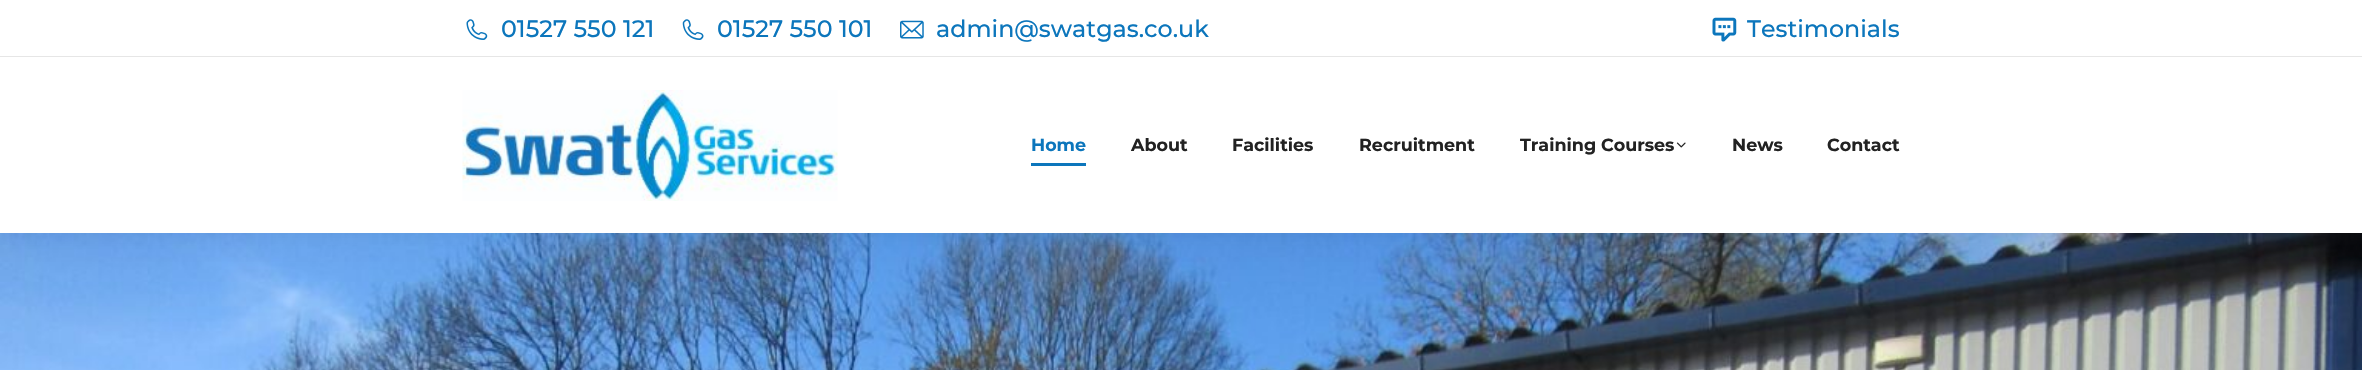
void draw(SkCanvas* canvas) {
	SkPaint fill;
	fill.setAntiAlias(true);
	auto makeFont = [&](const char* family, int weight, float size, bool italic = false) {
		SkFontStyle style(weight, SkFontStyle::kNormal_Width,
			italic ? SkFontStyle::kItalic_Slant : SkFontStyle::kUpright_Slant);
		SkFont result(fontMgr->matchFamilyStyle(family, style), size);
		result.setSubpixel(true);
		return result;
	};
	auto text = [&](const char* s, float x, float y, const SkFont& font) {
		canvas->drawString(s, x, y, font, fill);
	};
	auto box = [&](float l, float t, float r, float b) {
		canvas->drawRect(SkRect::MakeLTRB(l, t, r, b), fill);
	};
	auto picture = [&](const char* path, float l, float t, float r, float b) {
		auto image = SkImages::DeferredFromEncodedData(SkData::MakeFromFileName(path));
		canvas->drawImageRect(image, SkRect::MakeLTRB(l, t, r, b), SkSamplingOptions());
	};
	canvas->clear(0xFFFFFFFF);
	picture("image6.png", 0, 233, 2362, 370);
	fill.setColor(0x12000000);
	fill.setMaskFilter(SkMaskFilter::MakeBlur(kNormal_SkBlurStyle, 9.5f));
	canvas->drawRect(SkRect::MakeLTRB(-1, -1, 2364, 234), fill);
	fill.setMaskFilter(nullptr);
	fill.setColor(0xFFFFFFFF);
	box(0, 0, 2362, 233);
	picture("image0.png", 466, 19, 488, 40);
	picture("image1.png", 682, 19, 704, 40);
	picture("image2.png", 900, 20, 924, 39);
	picture("image3.png", 1712, 17, 1737, 42);
	fill.setColor(0xFFE6E6E6);
	box(0, 56, 2362, 57);
	picture("image4.png", 462, 90, 838, 201);
	fill.setColor(0xFF0C76BC);
	box(1031, 163, 1086, 166);
	picture("image5.png", 1676, 142, 1686, 148);
	auto font1 = makeFont("Montserrat", 500, 23.75f);
	text("01527 550 121", 501, 37, font1);
	text("01527 550 101", 717, 37, font1);
	text("admin@swatgas.co.uk", 936, 37, font1);
	text("Testimonials", 1747, 37, font1);
	auto font2 = makeFont("Montserrat", 700, 17.5f);
	text("Home", 1031, 151, font2);
	fill.setColor(0xFF222222);
	text("About", 1131, 151, font2);
	text("Facilities", 1232, 151, font2);
	text("Recruitment", 1359, 151, font2);
	text("Training Courses", 1520, 151, font2);
	text("News", 1732, 151, font2);
	text("Contact", 1827, 151, font2);
}
